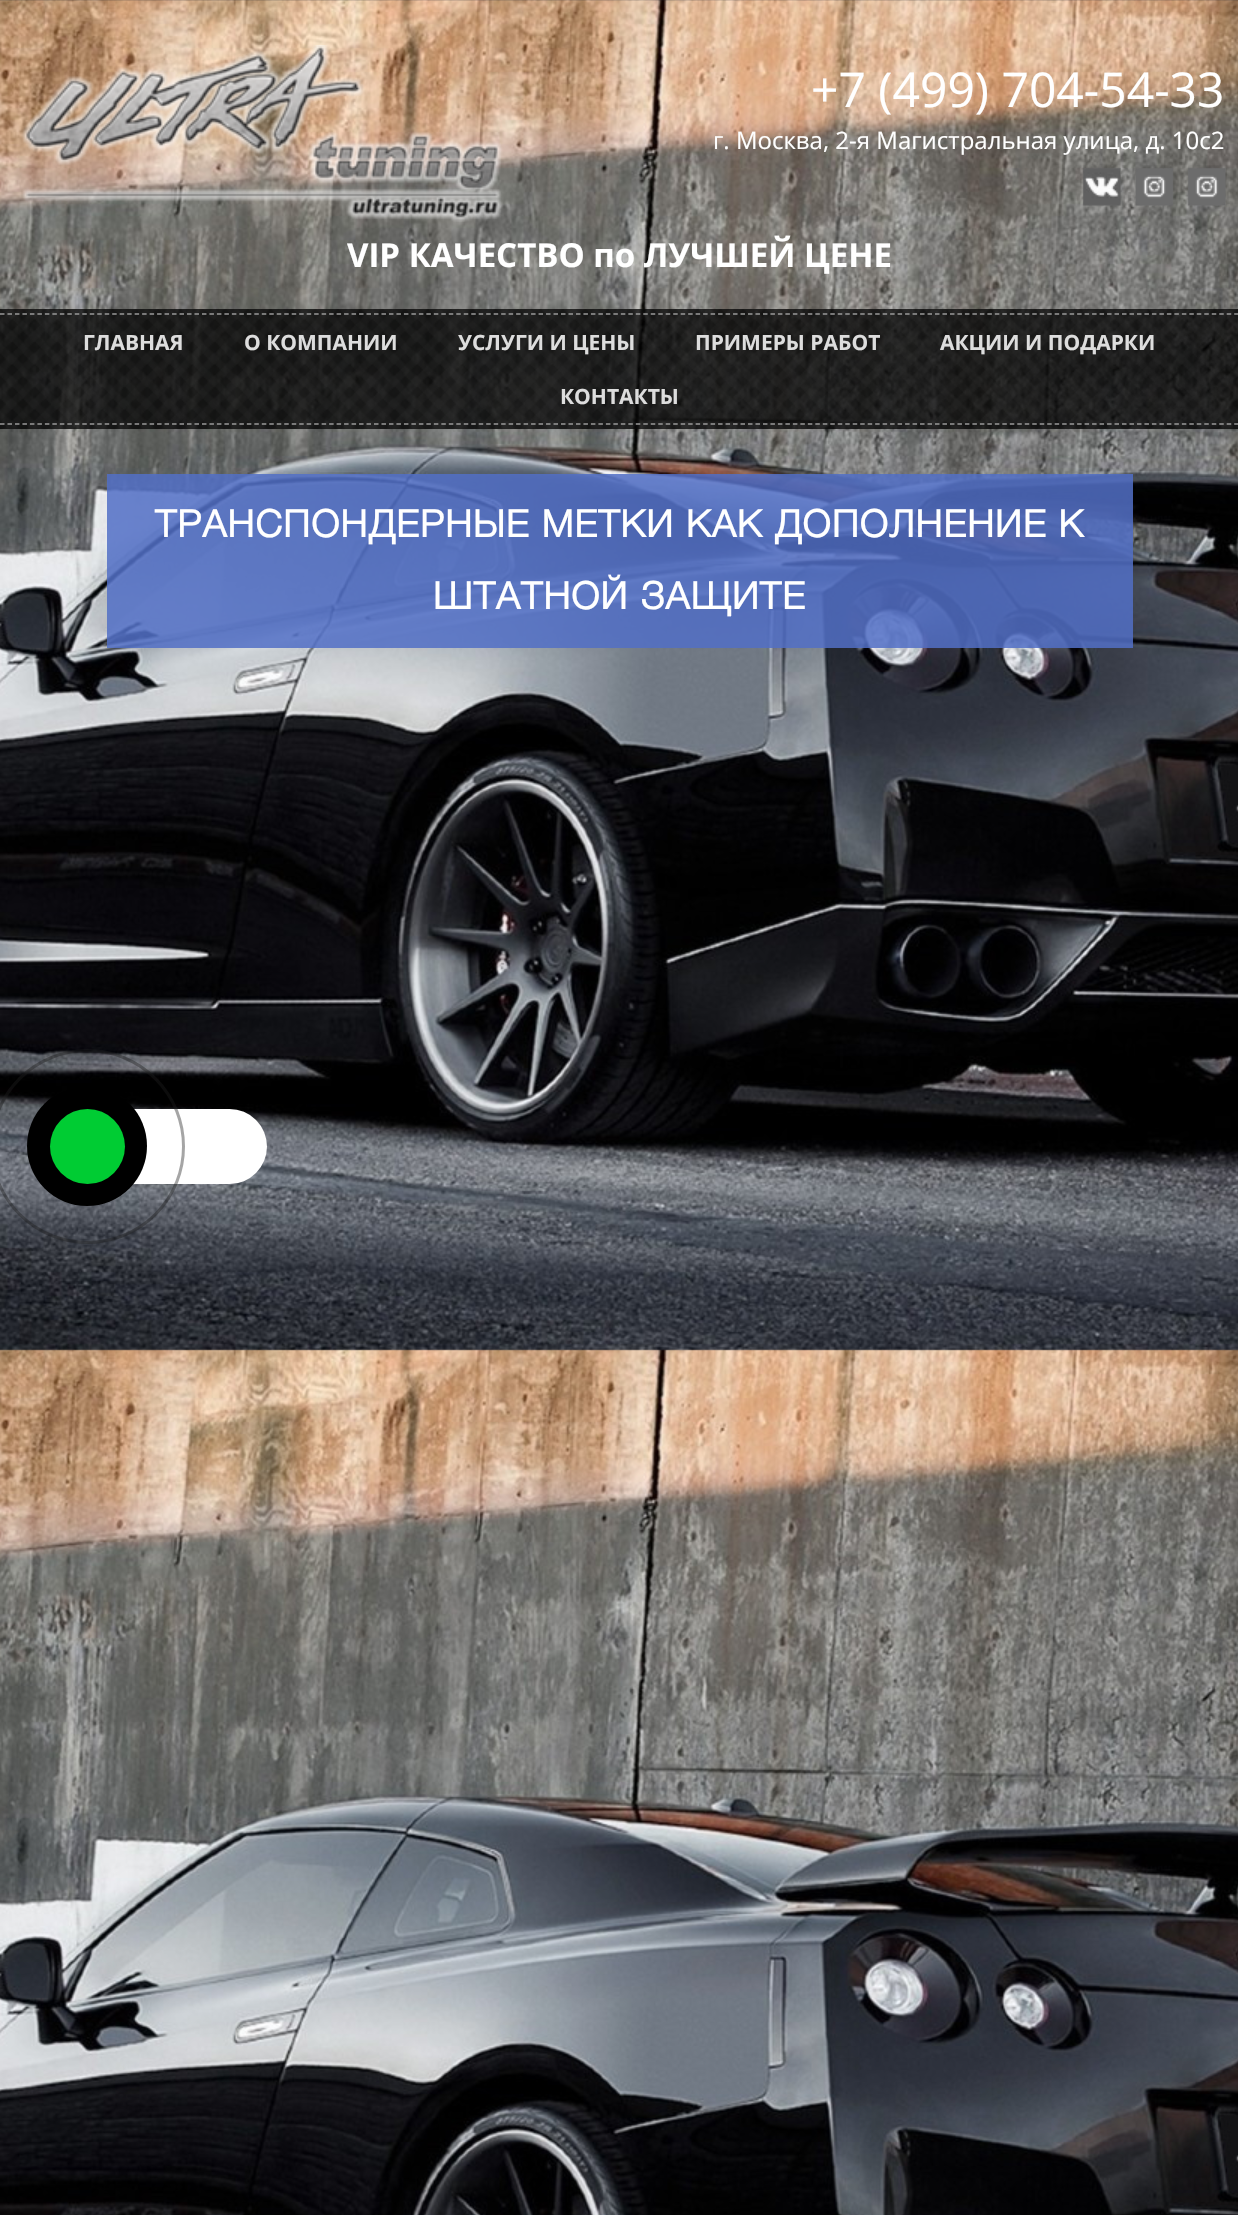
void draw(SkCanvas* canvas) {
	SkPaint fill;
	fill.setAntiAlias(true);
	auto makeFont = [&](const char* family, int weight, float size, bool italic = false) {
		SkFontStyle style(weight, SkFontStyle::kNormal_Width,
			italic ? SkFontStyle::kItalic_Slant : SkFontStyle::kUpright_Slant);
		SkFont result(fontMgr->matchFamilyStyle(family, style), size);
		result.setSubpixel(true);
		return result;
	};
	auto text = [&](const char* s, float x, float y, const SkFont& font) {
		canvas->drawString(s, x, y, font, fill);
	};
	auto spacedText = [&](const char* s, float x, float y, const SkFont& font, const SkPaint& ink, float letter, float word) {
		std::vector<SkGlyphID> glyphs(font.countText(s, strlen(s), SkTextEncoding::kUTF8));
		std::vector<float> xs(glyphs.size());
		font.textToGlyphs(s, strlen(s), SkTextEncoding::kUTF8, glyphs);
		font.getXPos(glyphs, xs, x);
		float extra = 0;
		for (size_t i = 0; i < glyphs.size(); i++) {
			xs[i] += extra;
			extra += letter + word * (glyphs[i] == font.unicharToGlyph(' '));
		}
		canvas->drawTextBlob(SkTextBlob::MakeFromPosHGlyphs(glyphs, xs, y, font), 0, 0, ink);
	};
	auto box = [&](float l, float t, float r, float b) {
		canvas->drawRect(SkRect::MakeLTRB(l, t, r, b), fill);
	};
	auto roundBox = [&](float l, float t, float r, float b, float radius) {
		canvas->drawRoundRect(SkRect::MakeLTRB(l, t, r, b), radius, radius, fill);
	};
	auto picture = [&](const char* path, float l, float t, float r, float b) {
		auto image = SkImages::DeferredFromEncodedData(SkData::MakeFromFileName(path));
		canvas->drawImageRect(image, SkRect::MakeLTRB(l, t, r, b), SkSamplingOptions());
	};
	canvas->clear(0xFFFFFFFF);
	picture("image0.png", 0, 0, 1238, 2215);
	picture("image1.png", 21, 45, 503, 222);
	picture("image2.png", 1080, 164, 1125, 209);
	picture("image3.png", 1132, 165, 1176, 209);
	picture("image4.png", 1185, 165, 1229, 209);
	picture("image5.png", 0, 309, 1238, 429);
	fill.setStyle(SkPaint::kStroke_Style);
	fill.setStrokeWidth(1.5f);
	fill.setColor(0xFF999999);
	fill.setPathEffect(SkDashPathEffect::Make({{4.5f, 2.98f}}, 0));
	canvas->drawPath(SkPathBuilder().moveTo(0, 314).lineTo(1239, 314).detach(), fill);
	fill.setPathEffect(nullptr);
	fill.setPathEffect(SkDashPathEffect::Make({{4.5f, 2.98f}}, 0));
	canvas->drawPath(SkPathBuilder().moveTo(0, 424).lineTo(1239, 424).detach(), fill);
	fill.setPathEffect(nullptr);
	fill.setStyle(SkPaint::kFill_Style);
	fill.setColor(0xD9516FC6);
	box(107, 474, 1133, 648);
	fill.setColor(0xFFFFFFFF);
	roundBox(50, 1109, 267, 1184, 37.5f);
	fill.setStyle(SkPaint::kStroke_Style);
	fill.setStrokeWidth(3);
	fill.setColor(0x661E1E1E);
	canvas->drawCircle(87.5f, 1146.5f, 96, fill);
	fill.setStyle(SkPaint::kFill_Style);
	fill.setColor(0xFF000000);
	canvas->drawCircle(87, 1146, 60, fill);
	fill.setColor(0xFF00CC33);
	canvas->drawCircle(87.5f, 1146.5f, 37.5f, fill);
	auto font1 = makeFont("Open Sans", 400, 48);
	fill.setColor(0xFFFFFFFF);
	text("+7 (499) 704-54-33", 811, 107, font1);
	auto font2 = makeFont("Open Sans", 400, 24);
	text("г. Москва, 2-я Магистральная улица, д. 10с2", 713, 149, font2);
	auto font3 = makeFont("Open Sans", 700, 33);
	text("VIP КАЧЕСТВО по ЛУЧШЕЙ ЦЕНЕ", 347, 267, font3);
	auto font4 = makeFont("Open Sans", 700, 21);
	fill.setColor(0xFFDDDDDD);
	text("ГЛАВНАЯ", 83, 350, font4);
	text("О КОМПАНИИ", 244, 350, font4);
	text("УСЛУГИ И ЦЕНЫ", 458, 350, font4);
	text("ПРИМЕРЫ РАБОТ", 695, 350, font4);
	text("АКЦИИ И ПОДАРКИ", 940, 350, font4);
	text("КОНТАКТЫ", 560, 404, font4);
	auto font5 = makeFont("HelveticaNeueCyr", 700, 37.5f);
	fill.setColor(0xFFFFFFFF);
	spacedText("ТРАНСПОНДЕРНЫЕ МЕТКИ КАК ДОПОЛНЕНИЕ К", 155, 537, font5, fill, 1.5f, 0);
	spacedText("ШТАТНОЙ ЗАЩИТЕ", 433, 609, font5, fill, 1.5f, 0);
}
